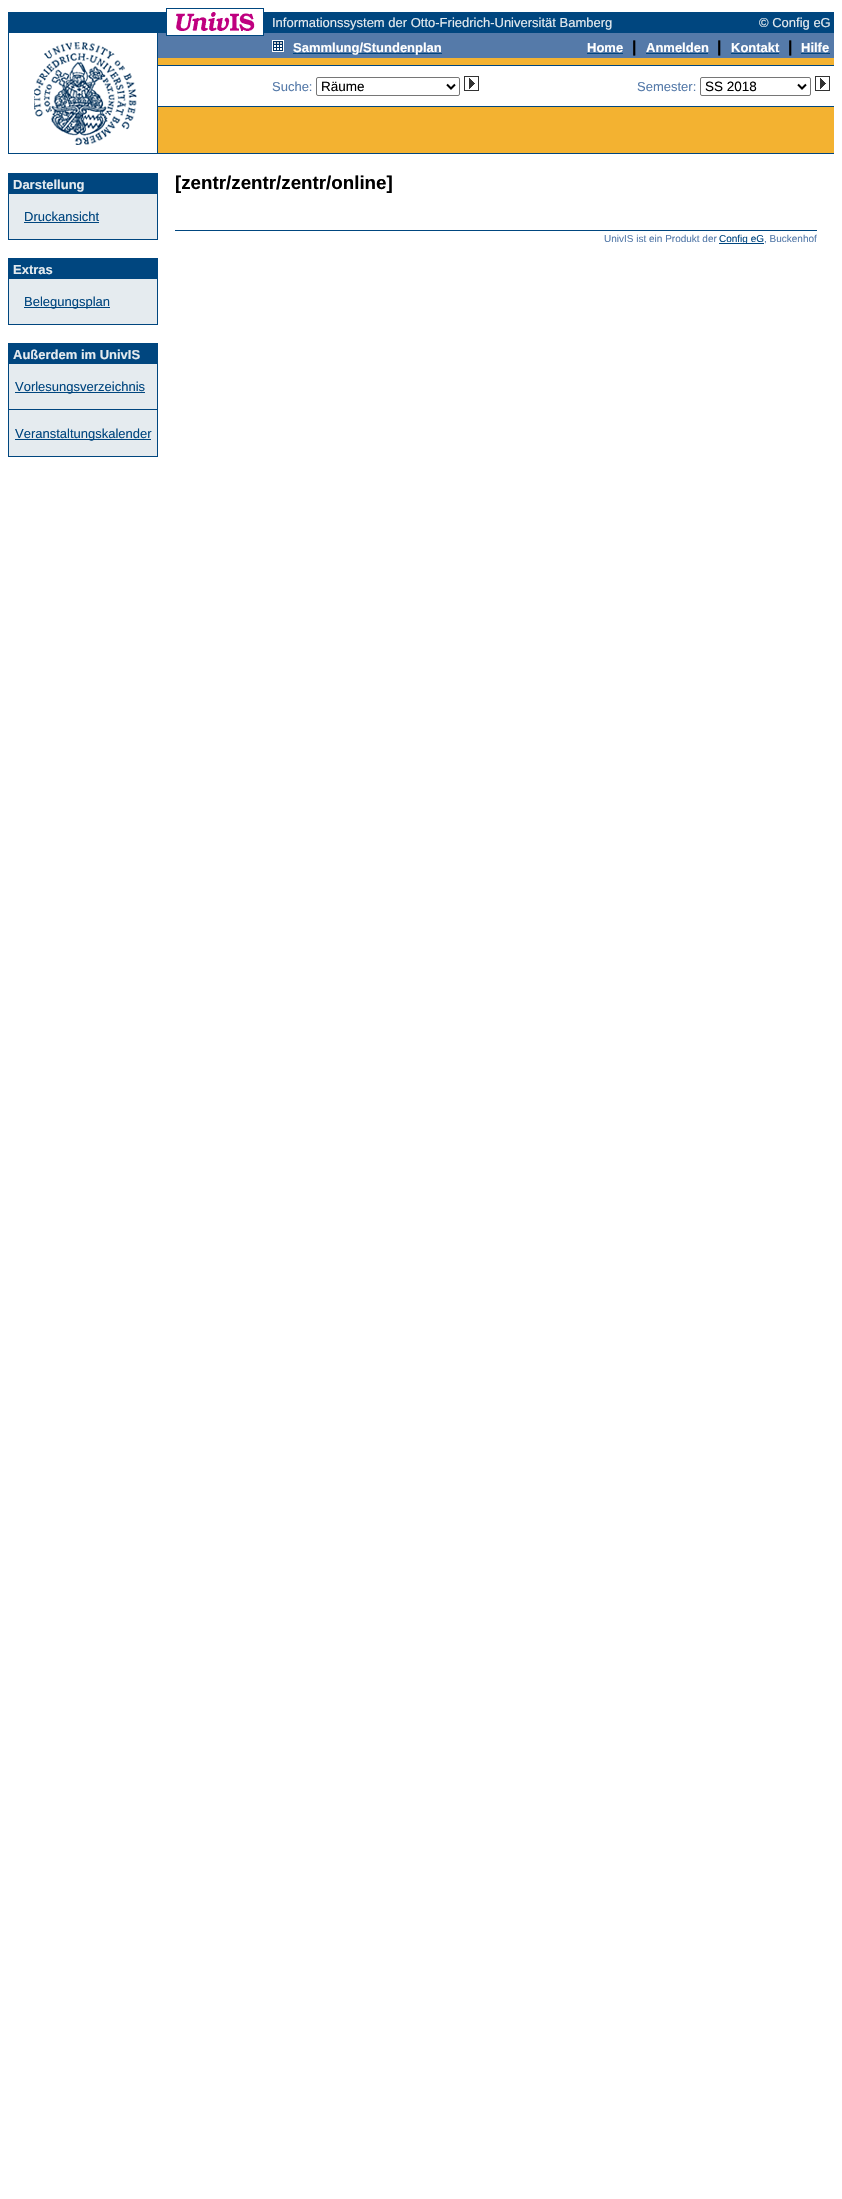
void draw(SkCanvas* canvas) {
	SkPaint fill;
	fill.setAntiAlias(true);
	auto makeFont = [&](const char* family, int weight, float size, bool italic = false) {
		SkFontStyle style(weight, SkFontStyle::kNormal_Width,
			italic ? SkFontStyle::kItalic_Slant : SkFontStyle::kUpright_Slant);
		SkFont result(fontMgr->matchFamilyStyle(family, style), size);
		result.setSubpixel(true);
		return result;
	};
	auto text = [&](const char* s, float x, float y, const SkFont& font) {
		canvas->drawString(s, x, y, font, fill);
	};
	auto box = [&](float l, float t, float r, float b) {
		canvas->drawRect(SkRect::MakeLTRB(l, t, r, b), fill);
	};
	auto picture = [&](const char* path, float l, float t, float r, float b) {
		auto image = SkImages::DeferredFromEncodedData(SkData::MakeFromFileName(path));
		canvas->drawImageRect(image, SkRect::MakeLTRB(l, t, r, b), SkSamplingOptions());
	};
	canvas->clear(0xFFFFFFFF);
	fill.setColor(0xFF00467F);
	box(166, 8, 264, 9);
	box(166, 9, 167, 12);
	box(263, 9, 264, 32);
	box(8, 12, 167, 32);
	picture("image0.png", 176, 12, 255, 31);
	box(264, 12, 834, 32);
	box(8, 32, 834, 33);
	fill.setColor(0xFFFFFFFF);
	box(167, 32, 263, 33);
	fill.setColor(0xFF00467F);
	box(8, 33, 9, 154);
	picture("image1.png", 34, 42, 137, 145);
	box(157, 33, 158, 153);
	fill.setColor(0xFFF3B231);
	box(158, 58, 834, 153);
	fill.setColor(0xFF557AA9);
	box(158, 33, 834, 35);
	fill.setColor(0xFF00467F);
	box(166, 33, 167, 35);
	fill.setColor(0xFFFFFFFF);
	box(167, 33, 263, 35);
	fill.setColor(0xFF00467F);
	box(263, 33, 264, 35);
	fill.setColor(0xFF557AA9);
	box(158, 35, 834, 37);
	fill.setColor(0xFF00467F);
	box(166, 35, 264, 36);
	fill.setColor(0xFF557AA9);
	box(158, 37, 834, 58);
	picture("image2.png", 272, 40, 284, 52);
	fill.setColor(0xFF00467F);
	box(293, 53, 442, 54);
	box(587, 53, 623, 54);
	box(646, 53, 708, 54);
	box(731, 53, 779, 54);
	box(801, 53, 830, 54);
	box(158, 65, 834, 66);
	fill.setColor(0xFFFFFFFF);
	box(158, 66, 834, 106);
	fill.setStyle(SkPaint::kStroke_Style);
	fill.setStrokeWidth(1);
	fill.setColor(0xFF767676);
	canvas->drawRoundRect(SkRect::MakeLTRB(316.5f, 77.5f, 459.5f, 95.5f), 1.5f, 1.5f, fill);
	fill.setStrokeWidth(2);
	fill.setColor(0xFF000000);
	canvas->drawPath(SkPathBuilder().moveTo(447, 84.5f).lineTo(451, 88.5f).lineTo(455, 84.5f).detach(), fill);
	picture("image3.png", 464, 76, 479, 91);
	fill.setStrokeWidth(1);
	fill.setColor(0xFF767676);
	canvas->drawRoundRect(SkRect::MakeLTRB(700.5f, 77.5f, 810.5f, 95.5f), 1.5f, 1.5f, fill);
	fill.setStrokeWidth(2);
	fill.setColor(0xFF000000);
	canvas->drawPath(SkPathBuilder().moveTo(798, 84.5f).lineTo(802, 88.5f).lineTo(806, 84.5f).detach(), fill);
	picture("image3.png", 815, 76, 830, 91);
	fill.setStyle(SkPaint::kFill_Style);
	fill.setColor(0xFF00467F);
	box(158, 106, 834, 107);
	box(9, 153, 834, 154);
	box(8, 173, 9, 240);
	box(9, 173, 157, 194);
	box(157, 173, 158, 240);
	fill.setColor(0xFFE5EBEF);
	box(9, 194, 157, 239);
	fill.setColor(0xFF00467F);
	box(24, 222, 99, 223);
	box(9, 239, 157, 240);
	box(8, 258, 9, 325);
	box(9, 258, 157, 279);
	box(157, 258, 158, 325);
	fill.setColor(0xFFE5EBEF);
	box(9, 279, 157, 324);
	fill.setColor(0xFF00467F);
	box(24, 307, 110, 308);
	box(9, 324, 157, 325);
	box(8, 343, 9, 457);
	box(9, 343, 157, 364);
	box(157, 343, 158, 457);
	fill.setColor(0xFFE5EBEF);
	box(9, 364, 157, 409);
	fill.setColor(0xFF00467F);
	box(15, 392, 145, 393);
	box(9, 409, 157, 410);
	fill.setColor(0xFFE5EBEF);
	box(9, 410, 157, 411);
	box(9, 411, 157, 456);
	fill.setColor(0xFF00467F);
	box(15, 439, 151, 440);
	box(9, 456, 157, 457);
	box(175, 230, 817, 231);
	box(719, 243, 764, 244);
	auto font1 = makeFont("Liberation Sans", 400, 13);
	fill.setColor(0xFFE5EBEF);
	text("Informationssystem der Otto-Friedrich-Universität Bamberg", 272, 27, font1);
	text("© Config eG", 759, 27, font1);
	auto font2 = makeFont("Liberation Sans", 700, 13);
	fill.setColor(0xFFFFFFFF);
	text("Sammlung/Stundenplan", 293, 52, font2);
	text("Home", 587, 52, font2);
	auto font3 = makeFont("Liberation Sans", 700, 16);
	fill.setColor(0xFF000000);
	text("|", 632, 52, font3);
	fill.setColor(0xFFFFFFFF);
	text("Anmelden", 646, 52, font2);
	fill.setColor(0xFF000000);
	text("|", 717, 52, font3);
	fill.setColor(0xFFFFFFFF);
	text("Kontakt", 731, 52, font2);
	fill.setColor(0xFF000000);
	text("|", 788, 52, font3);
	fill.setColor(0xFFFFFFFF);
	text("Hilfe", 801, 52, font2);
	fill.setColor(0xFF557AA9);
	text("Suche:", 272, 91, font1);
	auto font4 = makeFont("Liberation Sans", 400, 13.5f);
	fill.setColor(0xFF000000);
	text("Räume", 321, 91, font4);
	fill.setColor(0xFF557AA9);
	text("Semester:", 637, 91, font1);
	fill.setColor(0xFF000000);
	text("SS 2018", 705, 91, font4);
	fill.setColor(0xFFE5EBEF);
	text("Darstellung", 13, 189, font2);
	fill.setColor(0xFF00467F);
	text("Druckansicht", 24, 221, font1);
	fill.setColor(0xFFE5EBEF);
	text("Extras", 13, 274, font2);
	fill.setColor(0xFF00467F);
	text("Belegungsplan", 24, 306, font1);
	fill.setColor(0xFFE5EBEF);
	text("Außerdem im UnivIS", 13, 359, font2);
	fill.setColor(0xFF00467F);
	text("Vorlesungsverzeichnis", 15, 391, font1);
	text("Veranstaltungskalender", 15, 438, font1);
	auto font5 = makeFont("Liberation Sans", 700, 18.75f);
	fill.setColor(0xFF000000);
	text("[zentr/zentr/zentr/online]", 175, 189, font5);
	auto font6 = makeFont("Liberation Sans", 400, 10);
	fill.setColor(0xFF557AA9);
	text("UnivIS ist ein Produkt der", 604, 242, font6);
	fill.setColor(0xFF00467F);
	text("Config eG", 719, 242, font6);
	fill.setColor(0xFF557AA9);
	text(", Buckenhof", 764, 242, font6);
}
